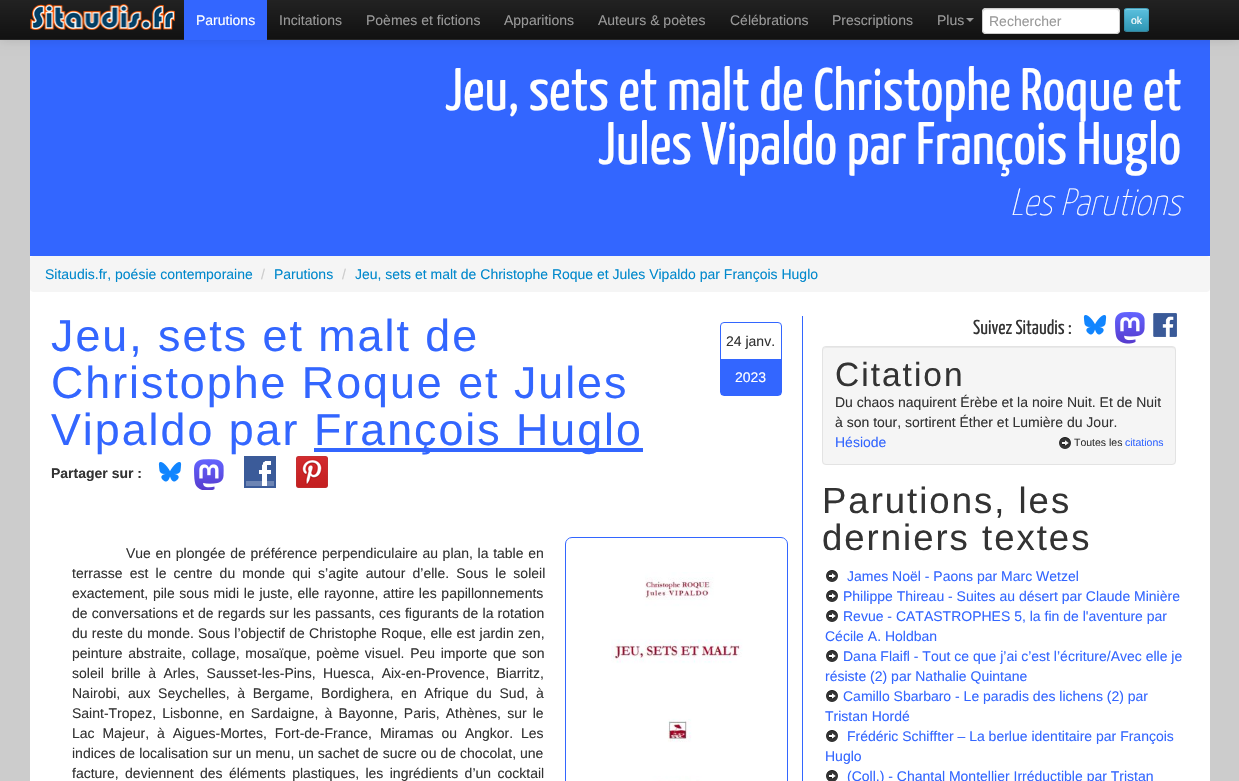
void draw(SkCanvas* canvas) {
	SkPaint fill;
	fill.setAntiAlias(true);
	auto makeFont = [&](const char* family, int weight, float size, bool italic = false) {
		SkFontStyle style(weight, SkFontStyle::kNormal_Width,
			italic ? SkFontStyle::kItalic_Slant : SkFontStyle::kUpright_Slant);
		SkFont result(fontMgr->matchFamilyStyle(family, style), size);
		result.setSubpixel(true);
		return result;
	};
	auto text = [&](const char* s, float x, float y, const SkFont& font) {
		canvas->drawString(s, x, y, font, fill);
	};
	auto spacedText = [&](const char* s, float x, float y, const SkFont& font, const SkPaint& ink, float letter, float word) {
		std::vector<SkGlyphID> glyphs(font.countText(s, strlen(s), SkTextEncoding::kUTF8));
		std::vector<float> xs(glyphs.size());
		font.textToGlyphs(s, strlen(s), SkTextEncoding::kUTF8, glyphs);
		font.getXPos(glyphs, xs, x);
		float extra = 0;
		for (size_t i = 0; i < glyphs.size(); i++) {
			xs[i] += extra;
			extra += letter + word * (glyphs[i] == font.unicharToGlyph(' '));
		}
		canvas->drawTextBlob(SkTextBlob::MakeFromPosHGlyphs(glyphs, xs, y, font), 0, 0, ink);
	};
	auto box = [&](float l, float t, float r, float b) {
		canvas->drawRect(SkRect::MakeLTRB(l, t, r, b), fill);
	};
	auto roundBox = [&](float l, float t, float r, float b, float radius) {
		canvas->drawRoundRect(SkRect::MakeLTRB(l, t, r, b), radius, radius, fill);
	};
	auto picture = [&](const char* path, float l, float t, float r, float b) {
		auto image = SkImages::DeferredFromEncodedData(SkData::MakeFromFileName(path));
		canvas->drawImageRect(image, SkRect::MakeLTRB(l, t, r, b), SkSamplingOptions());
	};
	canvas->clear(0xFFCCCCCC);
	fill.setColor(0xFF3366FF);
	box(30, 40, 1210, 256);
	fill.setColor(0x1A000000);
	fill.setMaskFilter(SkMaskFilter::MakeBlur(kNormal_SkBlurStyle, 5));
	canvas->drawRect(SkRect::MakeLTRB(0, 1, 1239, 41), fill);
	fill.setMaskFilter(nullptr);
	{
		const SkColor colors[] = {0xFF222222, 0xFF111111};
		const float stops[] = {0, 1};
		const SkPoint ends[] = {{620, 0}, {620, 39}};
		fill.setShader(SkGradientShader::MakeLinear(ends, colors, stops, 2, SkTileMode::kClamp));
		fill.setAlpha(255);
	}
	box(0, 0, 1239, 39);
	fill.setShader(nullptr);
	fill.setColor(0xFF252525);
	box(0, 39, 1239, 40);
	picture("image0.png", 30, 4, 175, 30);
	fill.setColor(0xFF3366FF);
	box(184, 0, 267, 40);
	fill.setColor(0xFF999999);
	canvas->drawPath(SkPathBuilder().moveTo(966, 18).lineTo(974, 18).lineTo(970, 22).close().detach(), fill);
	fill.setColor(0xFFFFFFFF);
	roundBox(982, 8, 1120, 34, 4);
	fill.setColor(0xFFECECEC);
	canvas->drawPath(SkPathBuilder().moveTo(986, 10).lineTo(1116, 10).cubicTo(1118, 10, 1119, 11, 1119, 13).cubicTo(1119, 11, 1119, 9, 1117, 9).lineTo(985, 9).cubicTo(983, 9, 983, 11, 983, 13).cubicTo(983, 11, 984, 10, 986, 10).close().detach(), fill);
	fill.setStyle(SkPaint::kStroke_Style);
	fill.setStrokeWidth(1);
	fill.setColor(0xFFCCCCCC);
	canvas->drawRoundRect(SkRect::MakeLTRB(982.5f, 8.5f, 1119.5f, 33.5f), 3.5f, 3.5f, fill);
	fill.setStyle(SkPaint::kFill_Style);
	fill.setColor(0xFF49AFCD);
	roundBox(1124, 8, 1149, 32, 3);
	canvas->save();
	canvas->clipPath(SkPathBuilder().moveTo(1127, 8).lineTo(1146, 8).cubicTo(1147.5f, 8, 1149, 9.5f, 1149, 11).lineTo(1149, 29).cubicTo(1149, 30.5f, 1147.5f, 32, 1146, 32).lineTo(1127, 32).cubicTo(1125.5f, 32, 1124, 30.5f, 1124, 29).lineTo(1124, 11).cubicTo(1124, 9.5f, 1125.5f, 8, 1127, 8).close().detach(), true);
	{
		const SkColor colors[] = {0xFF5BC0DE, 0xFF2F96B4};
		const float stops[] = {0, 1};
		const SkPoint ends[] = {{1137, 9}, {1137, 31}};
		fill.setShader(SkGradientShader::MakeLinear(ends, colors, stops, 2, SkTileMode::kClamp));
		fill.setAlpha(255);
	}
	box(1124, 9, 1149, 31);
	canvas->restore();
	fill.setShader(nullptr);
	fill.setColor(0xFF7BCCE4);
	canvas->drawPath(SkPathBuilder().moveTo(1127, 10).lineTo(1146, 10).cubicTo(1147, 10, 1148, 11, 1148, 12).cubicTo(1148, 8.5f, 1146, 9, 1143, 9).lineTo(1130, 9).cubicTo(1127, 9, 1125, 8.5f, 1125, 12).cubicTo(1125, 11, 1126, 10, 1127, 10).close().detach(), fill);
	fill.setStyle(SkPaint::kStroke_Style);
	fill.setColor(0x40000000);
	canvas->drawPath(SkPathBuilder().moveTo(1148, 31).cubicTo(1147.5f, 31, 1146.5f, 31.5f, 1146, 31.5f).lineTo(1127, 31.5f).cubicTo(1126.5f, 31.5f, 1125.5f, 31, 1125, 31).detach(), fill);
	fill.setColor(0x1A000000);
	canvas->drawPath(SkPathBuilder().moveTo(1125, 31).cubicTo(1124, 29.5f, 1124.5f, 27.5f, 1124.5f, 26).lineTo(1124.5f, 20).cubicTo(1124.5f, 6.5f, 1122.5f, 8.5f, 1136.5f, 8.5f).cubicTo(1150.5f, 8.5f, 1148.5f, 6.5f, 1148.5f, 20).lineTo(1148.5f, 26).cubicTo(1148.5f, 27.5f, 1149, 29.5f, 1148, 31).detach(), fill);
	fill.setStyle(SkPaint::kFill_Style);
	fill.setColor(0xFFFFFFFF);
	box(30, 256, 1210, 781);
	fill.setColor(0xFFF5F5F5);
	roundBox(30, 256, 1210, 292, 4);
	fill.setColor(0xFF3366FF);
	box(802, 316, 803, 781);
	box(314, 448, 643, 452);
	fill.setStyle(SkPaint::kStroke_Style);
	canvas->drawRoundRect(SkRect::MakeLTRB(720.5f, 322.5f, 781.5f, 395.5f), 3.5f, 3.5f, fill);
	fill.setStyle(SkPaint::kFill_Style);
	box(721, 359, 781, 395);
	picture("image1.png", 158, 462, 182, 482);
	picture("image2.png", 194, 459, 224, 490);
	picture("image3.png", 244, 456, 276, 488);
	picture("image4.png", 296, 456, 328, 488);
	fill.setStyle(SkPaint::kStroke_Style);
	canvas->drawRoundRect(SkRect::MakeLTRB(565.5f, 537.5f, 787.5f, 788.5f), 6.5f, 6.5f, fill);
	picture("image5.png", 611, 572, 743, 781);
	picture("image1.png", 1083, 315, 1107, 335);
	picture("image6.png", 1115, 312, 1145, 344);
	picture("image7.png", 1153, 313, 1177, 337);
	fill.setStyle(SkPaint::kFill_Style);
	fill.setColor(0xFFF5F5F5);
	roundBox(822, 346, 1176, 465, 4);
	fill.setColor(0xFFE9E9E9);
	canvas->drawPath(SkPathBuilder().moveTo(826, 348).lineTo(1172, 348).cubicTo(1174, 348, 1175, 349, 1175, 351).cubicTo(1175, 349, 1174, 347, 1172, 347).lineTo(826, 347).lineTo(824, 348).lineTo(823, 351).cubicTo(823, 349, 824, 348, 826, 348).close().detach(), fill);
	fill.setStyle(SkPaint::kStroke_Style);
	fill.setColor(0xFFE3E3E3);
	canvas->drawRoundRect(SkRect::MakeLTRB(822.5f, 346.5f, 1175.5f, 464.5f), 3.5f, 3.5f, fill);
	picture("image8.png", 1059, 437, 1071, 449);
	picture("image9.png", 826, 570, 838, 582);
	picture("image9.png", 826, 590, 838, 602);
	picture("image9.png", 826, 610, 838, 622);
	picture("image9.png", 826, 650, 838, 662);
	picture("image9.png", 826, 690, 838, 702);
	picture("image9.png", 826, 730, 838, 742);
	picture("image10.png", 826, 770, 838, 781);
	auto font1 = makeFont("Liberation Sans", 400, 14);
	fill.setStyle(SkPaint::kFill_Style);
	fill.setColor(0xFFFFFFFF);
	text("Parutions", 196, 25, font1);
	fill.setColor(0xFF999999);
	text("Incitations", 279, 25, font1);
	text("Poèmes et fictions", 366, 25, font1);
	text("Apparitions", 504, 25, font1);
	text("Auteurs & poètes", 598, 25, font1);
	text("Célébrations", 730, 25, font1);
	text("Prescriptions", 832, 25, font1);
	text("Plus", 937, 25, font1);
	text("Rechercher", 989, 26, font1);
	auto font2 = makeFont("Liberation Sans", 400, 10.5f);
	fill.setColor(0xFFFFFFFF);
	text("ok", 1131, 24, font2);
	auto font3 = makeFont("Yanone Kaffeesatz", 400, 60);
	text("Jeu, sets et malt de Christophe Roque et", 445, 110, font3);
	text("Jules Vipaldo par François Huglo", 598, 164, font3);
	auto font4 = makeFont("Yanone Kaffeesatz", 200, 38, true);
	text("Les Parutions", 1010, 215, font4);
	fill.setColor(0xFF0088CC);
	text("Sitaudis.fr, poésie contemporaine", 45, 279, font1);
	fill.setColor(0xFFCCCCCC);
	text("/", 261, 279, font1);
	fill.setColor(0xFF0088CC);
	text("Parutions", 274, 279, font1);
	fill.setColor(0xFFCCCCCC);
	text("/", 342, 279, font1);
	fill.setColor(0xFF0088CC);
	text("Jeu, sets et malt de Christophe Roque et Jules Vipaldo par François Huglo", 355, 279, font1);
	auto font5 = makeFont("Liberation Sans", 400, 44.75f);
	fill.setColor(0xFF3366FF);
	spacedText("Jeu, sets et malt de", 51, 351, font5, fill, 2, 0);
	spacedText("Christophe Roque et Jules", 51, 398, font5, fill, 2, 0);
	spacedText("Vipaldo par", 51, 445, font5, fill, 2, 0);
	spacedText("François Huglo", 314, 445, font5, fill, 2, 0);
	fill.setColor(0xFF333333);
	text("24 janv.", 726, 346, font1);
	fill.setColor(0xFFFFFFFF);
	text("2023", 735, 382, font1);
	auto font6 = makeFont("Liberation Sans", 700, 14);
	fill.setColor(0xFF333333);
	text("Partager sur :", 51, 478, font6);
	spacedText("Vue en plongée de préférence perpendiculaire au plan, la table en", 126, 558, font1, fill, 0, 0.75f);
	spacedText("terrasse est le centre du monde qui s’agite autour d’elle. Sous le soleil", 72, 578, font1, fill, 0, 3.25f);
	spacedText("exactement, pile sous midi le juste, elle rayonne, attire les papillonnements", 72, 598, font1, fill, 0, 0.75f);
	spacedText("de conversations et de regards sur les passants, ces figurants de la rotation", 72, 618, font1, fill, 0, 0.25f);
	spacedText("du reste du monde. Sous l’objectif de Christophe Roque, elle est jardin zen,", 72, 638, font1, fill, 0, 0.4f);
	spacedText("peinture abstraite, collage, mosaïque, poème visuel. Peu importe que son", 72, 658, font1, fill, 0, 1.75f);
	spacedText("soleil brille à Arles, Sausset-les-Pins, Huesca, Aix-en-Provence, Biarritz,", 72, 678, font1, fill, 0, 3.5f);
	spacedText("Nairobi, aux Seychelles, à Bergame, Bordighera, en Afrique du Sud, à", 72, 698, font1, fill, 0, 3.75f);
	spacedText("Saint-Tropez, Lisbonne, en Sardaigne, à Bayonne, Paris, Athènes, sur le", 72, 718, font1, fill, 0, 2.25f);
	spacedText("Lac Majeur, à Aigues-Mortes, Fort-de-France, Miramas ou Angkor. Les", 72, 738, font1, fill, 0, 4);
	spacedText("indices de localisation sur un menu, un sachet de sucre ou de chocolat, une", 72, 758, font1, fill, 0, 0.1f);
	spacedText("facture, deviennent des éléments plastiques, les ingrédients d’un cocktail", 72, 778, font1, fill, 0, 2.5f);
	auto font7 = makeFont("Yanone Kaffeesatz", 400, 20);
	text("Suivez Sitaudis :", 973, 334, font7);
	auto font8 = makeFont("Liberation Sans", 400, 33.5f);
	spacedText("Citation", 835, 386, font8, fill, 2, 0);
	text("Du chaos naquirent Érèbe et la noire Nuit. Et de Nuit", 835, 407, font1);
	text("à son tour, sortirent Éther et Lumière du Jour.", 835, 427, font1);
	fill.setColor(0xFF3366FF);
	text("Hésiode", 835, 447, font1);
	fill.setColor(0xFF333333);
	text("Toutes les", 1074, 446, font2);
	fill.setColor(0xFF3366FF);
	text("citations", 1125, 446, font2);
	auto font9 = makeFont("Liberation Sans", 400, 36.5f);
	fill.setColor(0xFF333333);
	spacedText("Parutions, les", 822, 513, font9, fill, 2, 0);
	spacedText("derniers textes", 822, 550, font9, fill, 2, 0);
	fill.setColor(0xFF3366FF);
	text("James Noël - Paons par Marc Wetzel", 847, 581, font1);
	text("Philippe Thireau - Suites au désert par Claude Minière", 843, 601, font1);
	text("Revue - CATASTROPHES 5, la fin de l'aventure par", 843, 621, font1);
	text("Cécile A. Holdban", 825, 641, font1);
	text("Dana Flaifl - Tout ce que j’ai c’est l’écriture/Avec elle je", 843, 661, font1);
	text("résiste (2) par Nathalie Quintane", 825, 681, font1);
	text("Camillo Sbarbaro - Le paradis des lichens (2) par", 843, 701, font1);
	text("Tristan Hordé", 825, 721, font1);
	text("Frédéric Schiffter – La berlue identitaire par François", 847, 741, font1);
	text("Huglo", 825, 761, font1);
	text("(Coll.) - Chantal Montellier Irréductible par Tristan", 847, 781, font1);
}
